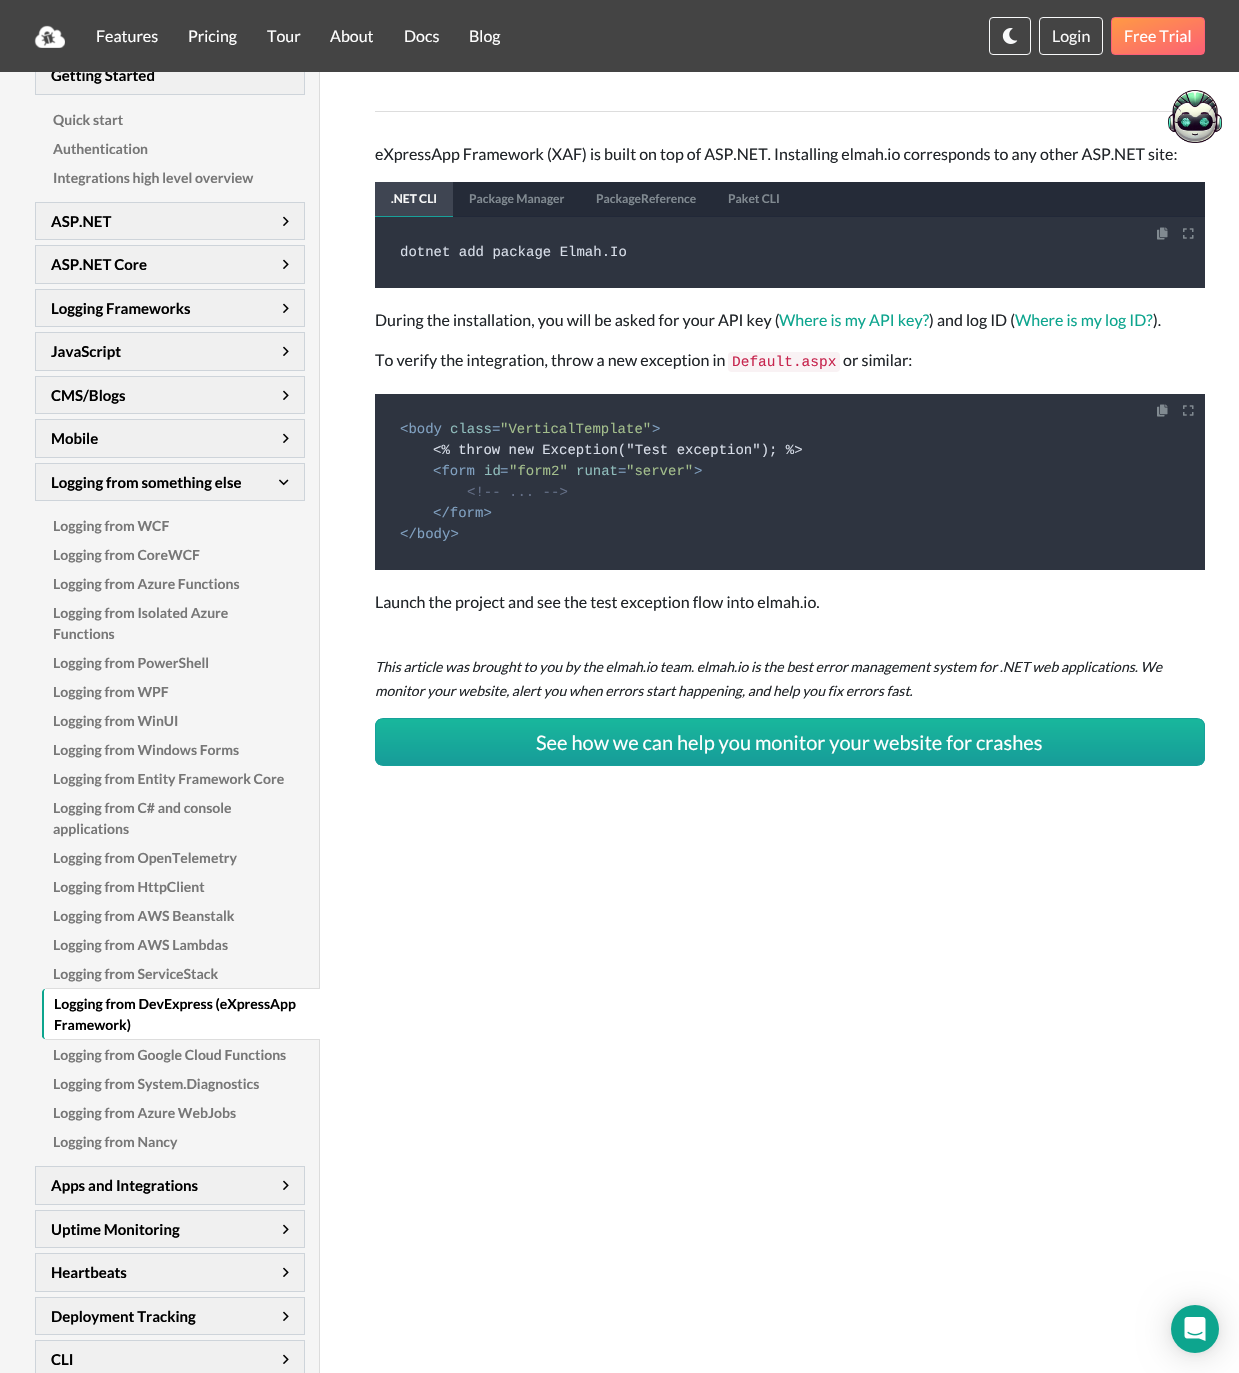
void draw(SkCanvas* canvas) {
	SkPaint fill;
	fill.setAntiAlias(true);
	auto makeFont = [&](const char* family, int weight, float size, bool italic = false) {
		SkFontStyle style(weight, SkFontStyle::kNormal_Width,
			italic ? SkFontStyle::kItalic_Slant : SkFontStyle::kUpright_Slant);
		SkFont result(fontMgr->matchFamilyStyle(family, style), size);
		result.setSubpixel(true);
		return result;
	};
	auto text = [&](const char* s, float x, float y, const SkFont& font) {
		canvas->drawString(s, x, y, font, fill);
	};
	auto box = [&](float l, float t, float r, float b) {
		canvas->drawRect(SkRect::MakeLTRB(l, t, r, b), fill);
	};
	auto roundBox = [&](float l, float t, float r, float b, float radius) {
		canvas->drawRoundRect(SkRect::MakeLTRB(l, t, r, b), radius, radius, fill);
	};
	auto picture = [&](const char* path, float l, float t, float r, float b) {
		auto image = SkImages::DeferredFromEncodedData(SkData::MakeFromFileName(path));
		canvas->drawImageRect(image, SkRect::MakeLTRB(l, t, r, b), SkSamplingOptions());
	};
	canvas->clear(0xFFFFFFFF);
	fill.setColor(0xFFF5F5F5);
	box(0, 72, 319, 1373);
	fill.setColor(0xFFF0F0F0);
	box(36, 72, 304, 94);
	fill.setStyle(SkPaint::kStroke_Style);
	fill.setStrokeWidth(1);
	fill.setColor(0xFFCED4DA);
	canvas->drawRect(SkRect::MakeLTRB(35.5f, 56.5f, 304.5f, 94.5f), fill);
	fill.setStyle(SkPaint::kFill_Style);
	fill.setColor(0xFFF0F0F0);
	canvas->drawRect(SkRect::MakeLTRB(35.5f, 202.5f, 304.5f, 239.5f), fill);
	fill.setStyle(SkPaint::kStroke_Style);
	fill.setColor(0xFFCED4DA);
	canvas->drawRect(SkRect::MakeLTRB(35.5f, 202.5f, 304.5f, 239.5f), fill);
	picture("image2.png", 283, 216, 289, 226);
	fill.setStyle(SkPaint::kFill_Style);
	fill.setColor(0xFFF0F0F0);
	canvas->drawRect(SkRect::MakeLTRB(35.5f, 245.5f, 304.5f, 283.5f), fill);
	fill.setStyle(SkPaint::kStroke_Style);
	fill.setColor(0xFFCED4DA);
	canvas->drawRect(SkRect::MakeLTRB(35.5f, 245.5f, 304.5f, 283.5f), fill);
	picture("image2.png", 283, 259, 289, 269);
	fill.setStyle(SkPaint::kFill_Style);
	fill.setColor(0xFFF0F0F0);
	canvas->drawRect(SkRect::MakeLTRB(35.5f, 289.5f, 304.5f, 326.5f), fill);
	fill.setStyle(SkPaint::kStroke_Style);
	fill.setColor(0xFFCED4DA);
	canvas->drawRect(SkRect::MakeLTRB(35.5f, 289.5f, 304.5f, 326.5f), fill);
	picture("image2.png", 283, 303, 289, 313);
	fill.setStyle(SkPaint::kFill_Style);
	fill.setColor(0xFFF0F0F0);
	canvas->drawRect(SkRect::MakeLTRB(35.5f, 332.5f, 304.5f, 370.5f), fill);
	fill.setStyle(SkPaint::kStroke_Style);
	fill.setColor(0xFFCED4DA);
	canvas->drawRect(SkRect::MakeLTRB(35.5f, 332.5f, 304.5f, 370.5f), fill);
	picture("image2.png", 283, 346, 289, 356);
	fill.setStyle(SkPaint::kFill_Style);
	fill.setColor(0xFFF0F0F0);
	canvas->drawRect(SkRect::MakeLTRB(35.5f, 376.5f, 304.5f, 413.5f), fill);
	fill.setStyle(SkPaint::kStroke_Style);
	fill.setColor(0xFFCED4DA);
	canvas->drawRect(SkRect::MakeLTRB(35.5f, 376.5f, 304.5f, 413.5f), fill);
	picture("image2.png", 283, 390, 289, 400);
	fill.setStyle(SkPaint::kFill_Style);
	fill.setColor(0xFFF0F0F0);
	canvas->drawRect(SkRect::MakeLTRB(35.5f, 419.5f, 304.5f, 457.5f), fill);
	fill.setStyle(SkPaint::kStroke_Style);
	fill.setColor(0xFFCED4DA);
	canvas->drawRect(SkRect::MakeLTRB(35.5f, 419.5f, 304.5f, 457.5f), fill);
	picture("image2.png", 283, 433, 289, 443);
	fill.setStyle(SkPaint::kFill_Style);
	fill.setColor(0xFFF0F0F0);
	canvas->drawRect(SkRect::MakeLTRB(35.5f, 463.5f, 304.5f, 500.5f), fill);
	fill.setStyle(SkPaint::kStroke_Style);
	fill.setColor(0xFFCED4DA);
	canvas->drawRect(SkRect::MakeLTRB(35.5f, 463.5f, 304.5f, 500.5f), fill);
	picture("image3.png", 279, 479, 289, 486);
	fill.setStyle(SkPaint::kFill_Style);
	fill.setColor(0xFFDCDCDC);
	box(319, 72, 320, 1373);
	fill.setColor(0xFFFFFFFF);
	canvas->drawPath(SkPathBuilder().moveTo(46, 988).lineTo(320, 988).lineTo(320, 1040).lineTo(46, 1040).cubicTo(44, 1040, 42, 1038, 42, 1036).lineTo(42, 992).cubicTo(42, 990, 44, 988, 46, 988).close().detach(), fill);
	fill.setColor(0xFFDDDDDD);
	canvas->drawPath(SkPathBuilder().moveTo(46, 988).lineTo(44, 989).lineTo(45, 989).lineTo(46, 989).lineTo(320, 989).lineTo(320, 988).close().detach(), fill);
	canvas->drawPath(SkPathBuilder().moveTo(320, 1040).lineTo(320, 1039).lineTo(46, 1039).lineTo(45, 1039).lineTo(44, 1039).lineTo(46, 1040).close().detach(), fill);
	fill.setColor(0xFF0DA58E);
	canvas->drawPath(SkPathBuilder().moveTo(42, 992).lineTo(42, 1037).lineTo(44, 1039).lineTo(45, 1039).lineTo(44, 1037).lineTo(44, 991).lineTo(45, 989).lineTo(44, 989).cubicTo(43, 990, 42, 991, 42, 992).close().detach(), fill);
	fill.setColor(0xFFF0F0F0);
	canvas->drawRect(SkRect::MakeLTRB(35.5f, 1166.5f, 304.5f, 1204.5f), fill);
	fill.setStyle(SkPaint::kStroke_Style);
	fill.setColor(0xFFCED4DA);
	canvas->drawRect(SkRect::MakeLTRB(35.5f, 1166.5f, 304.5f, 1204.5f), fill);
	picture("image2.png", 283, 1180, 289, 1190);
	fill.setStyle(SkPaint::kFill_Style);
	fill.setColor(0xFFF0F0F0);
	canvas->drawRect(SkRect::MakeLTRB(35.5f, 1210.5f, 304.5f, 1247.5f), fill);
	fill.setStyle(SkPaint::kStroke_Style);
	fill.setColor(0xFFCED4DA);
	canvas->drawRect(SkRect::MakeLTRB(35.5f, 1210.5f, 304.5f, 1247.5f), fill);
	picture("image2.png", 283, 1224, 289, 1234);
	fill.setStyle(SkPaint::kFill_Style);
	fill.setColor(0xFFF0F0F0);
	canvas->drawRect(SkRect::MakeLTRB(35.5f, 1253.5f, 304.5f, 1291.5f), fill);
	fill.setStyle(SkPaint::kStroke_Style);
	fill.setColor(0xFFCED4DA);
	canvas->drawRect(SkRect::MakeLTRB(35.5f, 1253.5f, 304.5f, 1291.5f), fill);
	picture("image2.png", 283, 1267, 289, 1277);
	fill.setStyle(SkPaint::kFill_Style);
	fill.setColor(0xFFF0F0F0);
	canvas->drawRect(SkRect::MakeLTRB(35.5f, 1297.5f, 304.5f, 1334.5f), fill);
	fill.setStyle(SkPaint::kStroke_Style);
	fill.setColor(0xFFCED4DA);
	canvas->drawRect(SkRect::MakeLTRB(35.5f, 1297.5f, 304.5f, 1334.5f), fill);
	picture("image2.png", 283, 1311, 289, 1321);
	fill.setStyle(SkPaint::kFill_Style);
	fill.setColor(0xFFF0F0F0);
	canvas->drawRect(SkRect::MakeLTRB(35.5f, 1340.5f, 304.5f, 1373.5f), fill);
	fill.setStyle(SkPaint::kStroke_Style);
	fill.setColor(0xFFCED4DA);
	canvas->drawRect(SkRect::MakeLTRB(35.5f, 1340.5f, 304.5f, 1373.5f), fill);
	picture("image2.png", 283, 1354, 289, 1364);
	fill.setStyle(SkPaint::kFill_Style);
	fill.setColor(0xFFDDDDDD);
	box(375, 111, 1173, 112);
	fill.setColor(0xFF2E3440);
	box(375, 217, 1205, 288);
	fill.setColor(0xFF252B38);
	box(453, 182, 1205, 216);
	fill.setColor(0xFF212838);
	box(453, 216, 1205, 217);
	fill.setColor(0xFF3F4552);
	box(375, 182, 453, 216);
	fill.setColor(0xFF18A19A);
	box(375, 216, 453, 217);
	picture("image4.png", 1157, 227, 1168, 240);
	picture("image5.png", 1183, 228, 1194, 239);
	fill.setColor(0xFFF9F2F4);
	roundBox(728, 352, 840, 372, 4);
	fill.setColor(0xFF2E3440);
	box(375, 394, 1205, 570);
	picture("image4.png", 1157, 404, 1168, 417);
	picture("image5.png", 1183, 405, 1194, 416);
	canvas->save();
	canvas->clipPath(SkPathBuilder().moveTo(383, 718).lineTo(1197, 718).cubicTo(1201.5f, 718, 1205, 721.5f, 1205, 726).lineTo(1205, 758).cubicTo(1205, 762.5f, 1201.5f, 766, 1197, 766).lineTo(383, 766).cubicTo(378.5f, 766, 375, 762.5f, 375, 758).lineTo(375, 726).cubicTo(375, 721.5f, 378.5f, 718, 383, 718).close().detach(), true);
	{
		const SkColor colors[] = {0xFF179C99, 0xFF18B79C};
		const float stops[] = {0, 1};
		const SkPoint ends[] = {{790, 765}, {790, 719}};
		fill.setShader(SkGradientShader::MakeLinear(ends, colors, stops, 2, SkTileMode::kClamp));
		fill.setAlpha(255);
	}
	box(375, 719, 1205, 765);
	canvas->restore();
	fill.setStyle(SkPaint::kStroke_Style);
	fill.setShader(nullptr);
	fill.setColor(0xFF18A19A);
	canvas->drawRoundRect(SkRect::MakeLTRB(375.5f, 718.5f, 1204.5f, 765.5f), 7.5f, 7.5f, fill);
	picture("image6.png", 1168, 90, 1222, 143);
	fill.setStyle(SkPaint::kFill_Style);
	fill.setColor(0x29000000);
	fill.setMaskFilter(SkMaskFilter::MakeBlur(kNormal_SkBlurStyle, 16));
	canvas->drawRoundRect(SkRect::MakeLTRB(1171, 1307, 1219, 1355), 24, 24, fill);
	fill.setMaskFilter(nullptr);
	fill.setColor(0x0F000000);
	fill.setMaskFilter(SkMaskFilter::MakeBlur(kNormal_SkBlurStyle, 3));
	canvas->drawRoundRect(SkRect::MakeLTRB(1171, 1306, 1219, 1354), 24, 24, fill);
	fill.setMaskFilter(nullptr);
	fill.setColor(0xFF0DA58E);
	canvas->drawCircle(1195, 1329, 24, fill);
	picture("image7.png", 1184, 1317, 1206, 1341);
	auto font1 = makeFont("Lato", 700, 15);
	fill.setColor(0xFF000000);
	text("Getting Started", 51, 81, font1);
	fill.setColor(0xFF444444);
	box(0, 0, 1239, 72);
	canvas->save();
	canvas->clipPath(SkPathBuilder().moveTo(1115, 17).lineTo(1201, 17).cubicTo(1203, 17, 1205, 19, 1205, 21).lineTo(1205, 51).cubicTo(1205, 53, 1203, 55, 1201, 55).lineTo(1115, 55).cubicTo(1113, 55, 1111, 53, 1111, 51).lineTo(1111, 21).cubicTo(1111, 19, 1113, 17, 1115, 17).close().detach(), true);
	{
		const SkColor colors[] = {0xFFFC6076, 0xFFFF9A44};
		const float stops[] = {0, 1};
		const SkPoint ends[] = {{1169, 67}, {1147, 5.3f}};
		fill.setShader(SkGradientShader::MakeLinear(ends, colors, stops, 2, SkTileMode::kClamp));
		fill.setAlpha(255);
	}
	box(1112, 18, 1204, 54);
	canvas->restore();
	fill.setStyle(SkPaint::kStroke_Style);
	fill.setShader(nullptr);
	fill.setColor(0xFFFC6076);
	canvas->drawRoundRect(SkRect::MakeLTRB(1111.5f, 17.5f, 1204.5f, 54.5f), 3.5f, 3.5f, fill);
	auto font2 = makeFont("Lato", 400, 16);
	fill.setStyle(SkPaint::kFill_Style);
	fill.setColor(0xFFFFFFFF);
	text("Free Trial", 1124, 42, font2);
	fill.setStyle(SkPaint::kStroke_Style);
	fill.setColor(0xFFF8F9FA);
	canvas->drawRoundRect(SkRect::MakeLTRB(1039.5f, 17.5f, 1102.5f, 54.5f), 3.5f, 3.5f, fill);
	fill.setStyle(SkPaint::kFill_Style);
	fill.setColor(0xFFF8F8F8);
	text("Login", 1052, 42, font2);
	fill.setStyle(SkPaint::kStroke_Style);
	fill.setColor(0xFFF8F9FA);
	canvas->drawRoundRect(SkRect::MakeLTRB(989.5f, 17.5f, 1030.5f, 54.5f), 3.5f, 3.5f, fill);
	picture("image1.png", 1002, 28, 1018, 44);
	fill.setStyle(SkPaint::kFill_Style);
	fill.setColor(0xFFFFFFFF);
	text("Blog", 469, 42, font2);
	text("Docs", 404, 42, font2);
	text("About", 330, 42, font2);
	text("Tour", 267, 42, font2);
	text("Pricing", 188, 42, font2);
	text("Features", 96, 42, font2);
	picture("image0.png", 34, 25, 65, 48);
	auto font3 = makeFont("Lato", 700, 14);
	fill.setColor(0xFF777777);
	text("Quick start", 53, 125, font3);
	text("Authentication", 53, 154, font3);
	text("Integrations high level overview", 53, 183, font3);
	fill.setColor(0xFF000000);
	text("ASP.NET", 51, 227, font1);
	text("ASP.NET Core", 51, 270, font1);
	text("Logging Frameworks", 51, 314, font1);
	text("JavaScript", 51, 357, font1);
	text("CMS/Blogs", 51, 401, font1);
	text("Mobile", 51, 444, font1);
	text("Logging from something else", 51, 488, font1);
	fill.setColor(0xFF777777);
	text("Logging from WCF", 53, 531, font3);
	text("Logging from CoreWCF", 53, 560, font3);
	text("Logging from Azure Functions", 53, 589, font3);
	text("Logging from Isolated Azure", 53, 618, font3);
	text("Functions", 53, 639, font3);
	text("Logging from PowerShell", 53, 668, font3);
	text("Logging from WPF", 53, 697, font3);
	text("Logging from WinUI", 53, 726, font3);
	text("Logging from Windows Forms", 53, 755, font3);
	text("Logging from Entity Framework Core", 53, 784, font3);
	text("Logging from C# and console", 53, 813, font3);
	text("applications", 53, 834, font3);
	text("Logging from OpenTelemetry", 53, 863, font3);
	text("Logging from HttpClient", 53, 892, font3);
	text("Logging from AWS Beanstalk", 53, 921, font3);
	text("Logging from AWS Lambdas", 53, 950, font3);
	text("Logging from ServiceStack", 53, 979, font3);
	fill.setColor(0xFF000000);
	text("Logging from DevExpress (eXpressApp", 54, 1009, font3);
	text("Framework)", 54, 1030, font3);
	fill.setColor(0xFF777777);
	text("Logging from Google Cloud Functions", 53, 1060, font3);
	text("Logging from System.Diagnostics", 53, 1089, font3);
	text("Logging from Azure WebJobs", 53, 1118, font3);
	text("Logging from Nancy", 53, 1147, font3);
	fill.setColor(0xFF000000);
	text("Apps and Integrations", 51, 1191, font1);
	text("Uptime Monitoring", 51, 1235, font1);
	text("Heartbeats", 51, 1278, font1);
	text("Deployment Tracking", 51, 1322, font1);
	text("CLI", 51, 1365, font1);
	fill.setColor(0xFF212529);
	text("eXpressApp Framework (XAF) is built on top of ASP.NET. Installing elmah.io corresponds to any other ASP.NET site:", 375, 160, font2);
	auto font4 = makeFont("Lato", 700, 12);
	fill.setColor(0xFFF8F8F8);
	text(".NET CLI", 391, 203, font4);
	fill.setColor(0xFF818A91);
	text("Package Manager", 469, 203, font4);
	text("PackageReference", 596, 203, font4);
	text("Paket CLI", 728, 203, font4);
	auto font5 = makeFont("Liberation Mono", 400, 14);
	fill.setColor(0xFFD8DEE9);
	text("dotnet add package Elmah.Io", 400, 256, font5);
	fill.setColor(0xFF212529);
	text("During the installation, you will be asked for your API key (", 375, 326, font2);
	fill.setColor(0xFF0DA58E);
	text("Where is my API key?", 779, 326, font2);
	fill.setColor(0xFF212529);
	text(") and log ID (", 929, 326, font2);
	fill.setColor(0xFF0DA58E);
	text("Where is my log ID?", 1015, 326, font2);
	fill.setColor(0xFF212529);
	text(").", 1153, 326, font2);
	text("To verify the integration, throw a new exception in", 375, 366, font2);
	auto font6 = makeFont("Liberation Mono", 400, 14.5f);
	fill.setColor(0xFFC7254E);
	text("Default.aspx", 732, 366, font6);
	fill.setColor(0xFF212529);
	text("or similar:", 843, 366, font2);
	fill.setColor(0xFF81A1C1);
	text("<body", 400, 433, font5);
	fill.setColor(0xFF8FBCBB);
	text("class", 450, 433, font5);
	fill.setColor(0xFF81A1C1);
	text("=", 492, 433, font5);
	fill.setColor(0xFFA3BE8C);
	text("\"VerticalTemplate\"", 500, 433, font5);
	fill.setColor(0xFF81A1C1);
	text(">", 652, 433, font5);
	fill.setColor(0xFFD8DEE9);
	text("<% throw new Exception(\"Test exception\"); %>", 433, 454, font5);
	fill.setColor(0xFF81A1C1);
	text("<form", 433, 475, font5);
	fill.setColor(0xFF8FBCBB);
	text("id", 484, 475, font5);
	fill.setColor(0xFF81A1C1);
	text("=", 500, 475, font5);
	fill.setColor(0xFFA3BE8C);
	text("\"form2\"", 509, 475, font5);
	fill.setColor(0xFF8FBCBB);
	text("runat", 576, 475, font5);
	fill.setColor(0xFF81A1C1);
	text("=", 618, 475, font5);
	fill.setColor(0xFFA3BE8C);
	text("\"server\"", 626, 475, font5);
	fill.setColor(0xFF81A1C1);
	text(">", 694, 475, font5);
	fill.setColor(0xFF657088);
	text("<!-- ... -->", 467, 496, font5);
	fill.setColor(0xFF81A1C1);
	text("</form>", 433, 517, font5);
	text("</body>", 400, 538, font5);
	fill.setColor(0xFF212529);
	text("Launch the project and see the test exception flow into elmah.io.", 375, 608, font2);
	auto font7 = makeFont("Lato", 400, 14, true);
	text("This article was brought to you by the elmah.io team. elmah.io is the best error management system for .NET web applications. We", 375, 672, font7);
	text("monitor your website, alert you when errors start happening, and help you fix errors fast.", 375, 696, font7);
	auto font8 = makeFont("Lato", 400, 20);
	fill.setColor(0xFFFFFFFF);
	text("See how we can help you monitor your website for crashes", 536, 750, font8);
}
